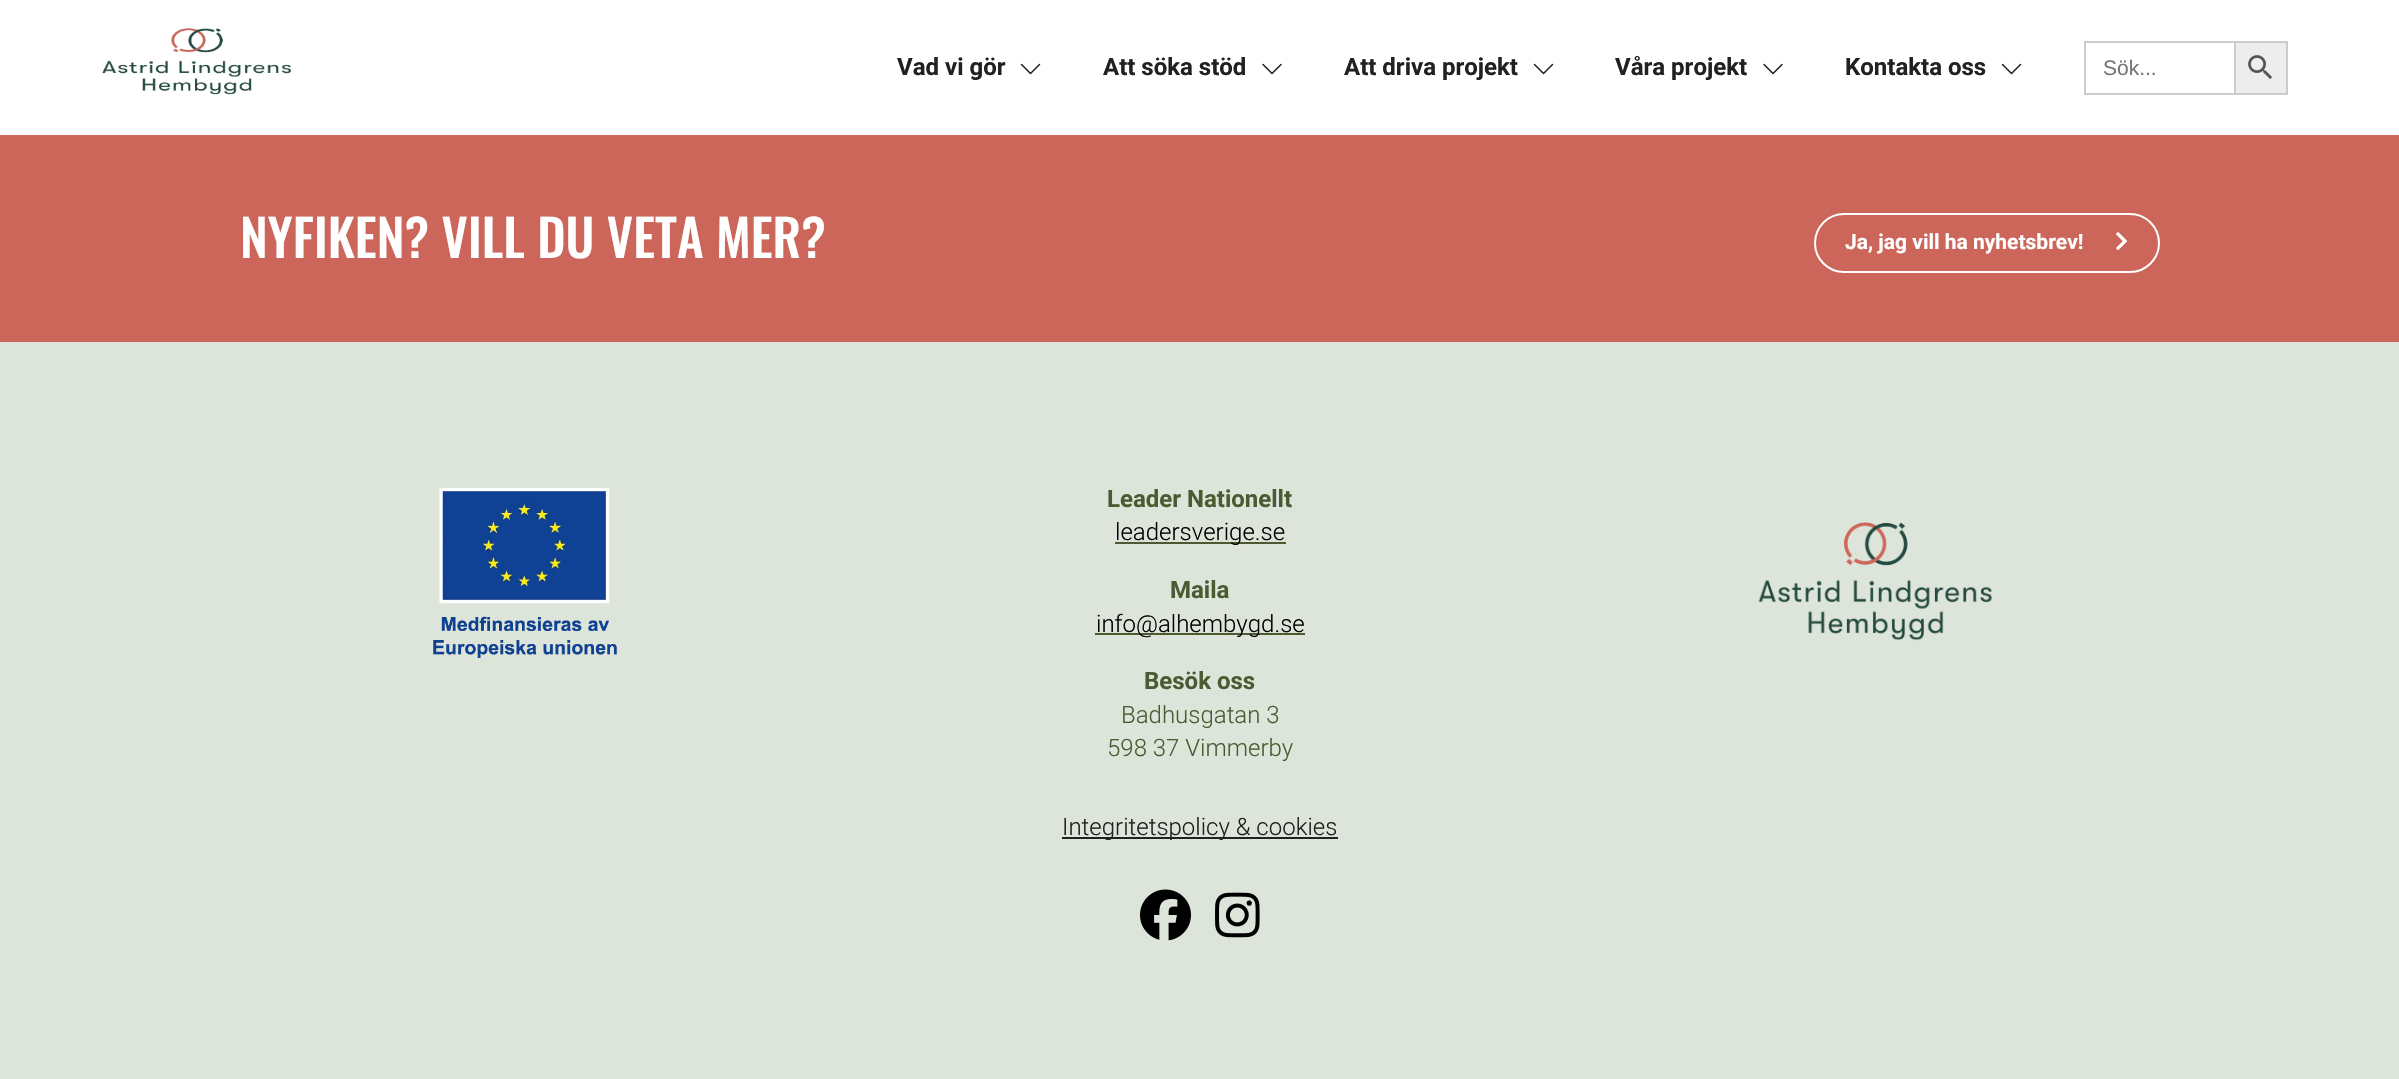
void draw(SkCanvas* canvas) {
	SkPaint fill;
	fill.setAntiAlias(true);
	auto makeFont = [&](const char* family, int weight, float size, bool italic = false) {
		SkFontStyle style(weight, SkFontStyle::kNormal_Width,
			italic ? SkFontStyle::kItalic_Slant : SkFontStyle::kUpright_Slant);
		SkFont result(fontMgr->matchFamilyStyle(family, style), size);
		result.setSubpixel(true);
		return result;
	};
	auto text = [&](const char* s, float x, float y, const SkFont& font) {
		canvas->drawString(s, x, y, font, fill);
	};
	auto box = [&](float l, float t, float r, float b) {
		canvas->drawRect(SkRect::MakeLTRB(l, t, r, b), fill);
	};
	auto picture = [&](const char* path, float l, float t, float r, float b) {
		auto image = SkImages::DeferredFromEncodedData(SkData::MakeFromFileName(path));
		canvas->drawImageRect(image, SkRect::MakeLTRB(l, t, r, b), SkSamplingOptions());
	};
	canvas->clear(0xFFFFFFFF);
	picture("image0.png", 102, 28, 292, 95);
	picture("image1.png", 1020, 63, 1041, 75);
	picture("image2.png", 1262, 63, 1282, 75);
	picture("image1.png", 1533, 63, 1554, 75);
	picture("image2.png", 1763, 63, 1783, 75);
	picture("image1.png", 2001, 63, 2022, 75);
	fill.setColor(0xFFCCCCCC);
	box(2084, 41, 2234, 43);
	box(2084, 93, 2234, 95);
	box(2084, 41, 2086, 95);
	fill.setColor(0xFFEDEDED);
	canvas->drawRect(SkRect::MakeLTRB(2235, 42, 2287, 94), fill);
	fill.setStyle(SkPaint::kStroke_Style);
	fill.setStrokeWidth(2);
	fill.setColor(0xFFCCCCCC);
	canvas->drawRect(SkRect::MakeLTRB(2235, 42, 2287, 94), fill);
	picture("image3.png", 2248, 55, 2273, 80);
	fill.setStyle(SkPaint::kFill_Style);
	fill.setColor(0xFFCD665A);
	box(0, 135, 2399, 342);
	fill.setStyle(SkPaint::kStroke_Style);
	fill.setColor(0xFFFFFFFF);
	canvas->drawRoundRect(SkRect::MakeLTRB(1815, 214, 2159, 272), 29, 29, fill);
	picture("image4.png", 2116, 232, 2127, 250);
	fill.setStyle(SkPaint::kFill_Style);
	fill.setColor(0xFFDDE5DA);
	box(0, 342, 2399, 1079);
	picture("image5.png", 433, 488, 617, 658);
	fill.setColor(0xFF4D5A31);
	box(1115, 542, 1286, 544);
	box(1095, 633, 1305, 635);
	fill.setColor(0xFF212121);
	box(1062, 837, 1338, 839);
	picture("image6.png", 1140, 889, 1191, 941);
	picture("image7.png", 1215, 892, 1260, 938);
	picture("image8.png", 1758, 522, 1993, 641);
	auto font1 = makeFont("Roboto", 700, 24);
	text("Vad vi gör", 897, 75, font1);
	text("Att söka stöd", 1103, 75, font1);
	text("Att driva projekt", 1344, 75, font1);
	text("Våra projekt", 1615, 75, font1);
	text("Kontakta oss", 1845, 75, font1);
	auto font2 = makeFont("Liberation Sans", 400, 21);
	fill.setColor(0xFF757575);
	text("Sök...", 2103, 75, font2);
	auto font3 = makeFont("Oswald", 500, 51);
	fill.setColor(0xFFFFFFFF);
	text("NYFIKEN? VILL DU VETA MER?", 240, 258, font3);
	auto font4 = makeFont("Roboto", 700, 21);
	text("Ja, jag vill ha nyhetsbrev!", 1845, 249, font4);
	fill.setColor(0xFF4D5A31);
	text("Leader Nationellt", 1107, 507, font1);
	auto font5 = makeFont("Roboto", 300, 24);
	fill.setColor(0xFF000000);
	text("leadersverige.se", 1115, 540, font5);
	fill.setColor(0xFF4D5A31);
	text("Maila", 1170, 598, font1);
	fill.setColor(0xFF000000);
	text("info@alhembygd.se", 1096, 632, font5);
	fill.setColor(0xFF4D5A31);
	text("Besök oss", 1144, 689, font1);
	text("Badhusgatan 3", 1121, 723, font5);
	text("598 37 Vimmerby", 1107, 756, font5);
	fill.setColor(0xFF212121);
	text("Integritetspolicy & cookies", 1062, 835, font5);
}
